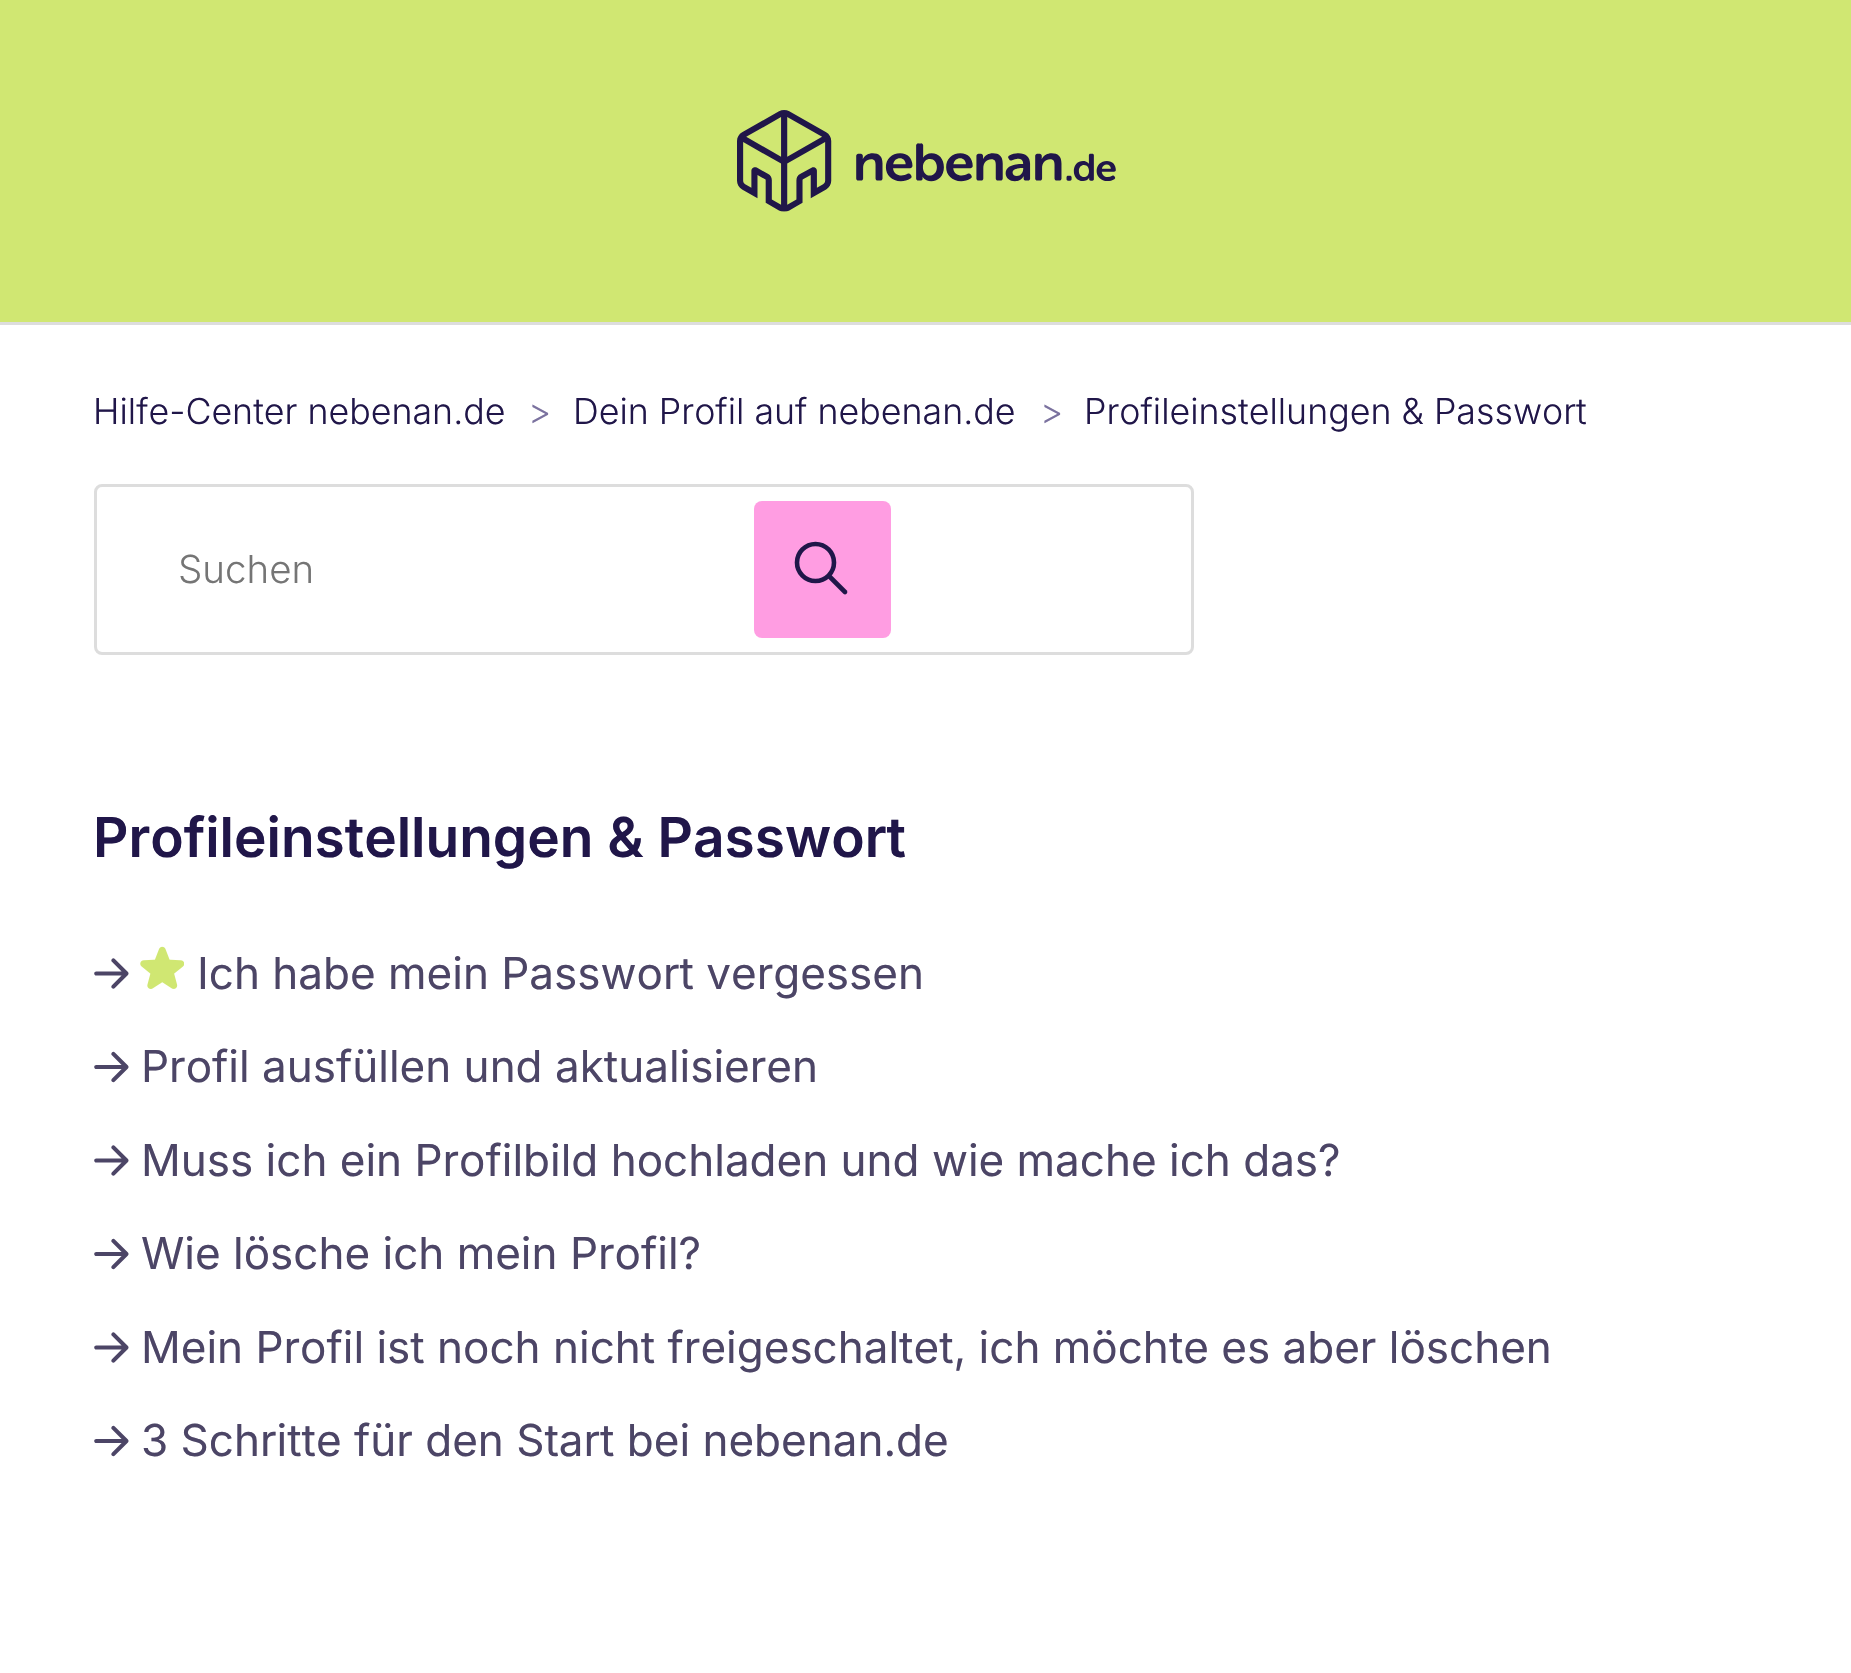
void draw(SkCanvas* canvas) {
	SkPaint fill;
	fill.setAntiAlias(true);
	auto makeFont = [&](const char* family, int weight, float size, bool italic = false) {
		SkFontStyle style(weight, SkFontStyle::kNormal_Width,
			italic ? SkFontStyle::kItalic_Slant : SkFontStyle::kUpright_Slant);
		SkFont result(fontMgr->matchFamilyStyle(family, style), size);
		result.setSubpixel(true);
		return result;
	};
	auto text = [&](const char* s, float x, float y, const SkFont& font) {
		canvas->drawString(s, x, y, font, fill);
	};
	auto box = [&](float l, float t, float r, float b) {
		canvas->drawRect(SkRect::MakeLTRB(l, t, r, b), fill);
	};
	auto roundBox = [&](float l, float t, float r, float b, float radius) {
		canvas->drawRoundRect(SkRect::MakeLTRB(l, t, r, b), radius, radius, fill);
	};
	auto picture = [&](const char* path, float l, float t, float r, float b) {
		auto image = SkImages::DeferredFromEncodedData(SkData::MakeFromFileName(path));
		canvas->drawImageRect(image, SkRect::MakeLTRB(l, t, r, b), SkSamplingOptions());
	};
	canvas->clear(0xFFFFFFFF);
	fill.setColor(0xFFD0E772);
	box(0, 0, 1851, 322);
	picture("image0.png", 737, 110, 1116, 212);
	fill.setColor(0xFFDDDDDD);
	box(0, 322, 1851, 325);
	fill.setStyle(SkPaint::kStroke_Style);
	fill.setStrokeWidth(3);
	canvas->drawRoundRect(SkRect::MakeLTRB(95.5f, 485.5f, 1192.5f, 653.5f), 6.5f, 6.5f, fill);
	fill.setStyle(SkPaint::kFill_Style);
	fill.setColor(0xFFFF9DE2);
	roundBox(754, 501, 891, 638, 8);
	fill.setStyle(SkPaint::kStroke_Style);
	fill.setStrokeWidth(4.6f);
	fill.setColor(0xFF201649);
	canvas->drawCircle(815.5f, 562.5f, 18.5f, fill);
	fill.setStrokeCap(SkPaint::kRound_Cap);
	canvas->drawPath(SkPathBuilder().moveTo(845, 592).lineTo(829, 576).detach(), fill);
	picture("image1.png", 94, 958, 129, 989);
	picture("image2.png", 140, 946, 184, 989);
	picture("image3.png", 94, 1051, 129, 1083);
	picture("image1.png", 94, 1145, 129, 1176);
	picture("image3.png", 94, 1238, 129, 1270);
	picture("image1.png", 94, 1332, 129, 1363);
	picture("image3.png", 94, 1425, 129, 1457);
	auto font1 = makeFont("Inter", 300, 35.75f);
	fill.setStyle(SkPaint::kFill_Style);
	text("Hilfe-Center nebenan.de", 93, 424, font1);
	fill.setColor(0xFF7B729F);
	text(">", 528, 424, font1);
	fill.setColor(0xFF201649);
	text("Dein Profil auf nebenan.de", 573, 424, font1);
	fill.setColor(0xFF7B729F);
	text(">", 1040, 424, font1);
	fill.setColor(0xFF201649);
	text("Profileinstellungen & Passwort", 1084, 424, font1);
	auto font2 = makeFont("Inter", 300, 38.5f);
	fill.setColor(0xFF757575);
	text("Suchen", 178, 583, font2);
	auto font3 = makeFont("Inter", 600, 55);
	fill.setColor(0xFF201649);
	text("Profileinstellungen & Passwort", 93, 857, font3);
	auto font4 = makeFont("Inter", 400, 44);
	fill.setColor(0xFF4C4566);
	text("Ich habe mein Passwort vergessen", 197, 989, font4);
	text("Profil ausfüllen und aktualisieren", 141, 1082, font4);
	text("Muss ich ein Profilbild hochladen und wie mache ich das?", 141, 1176, font4);
	text("Wie lösche ich mein Profil?", 141, 1269, font4);
	text("Mein Profil ist noch nicht freigeschaltet, ich möchte es aber löschen", 141, 1363, font4);
	text("3 Schritte für den Start bei nebenan.de", 141, 1456, font4);
}
